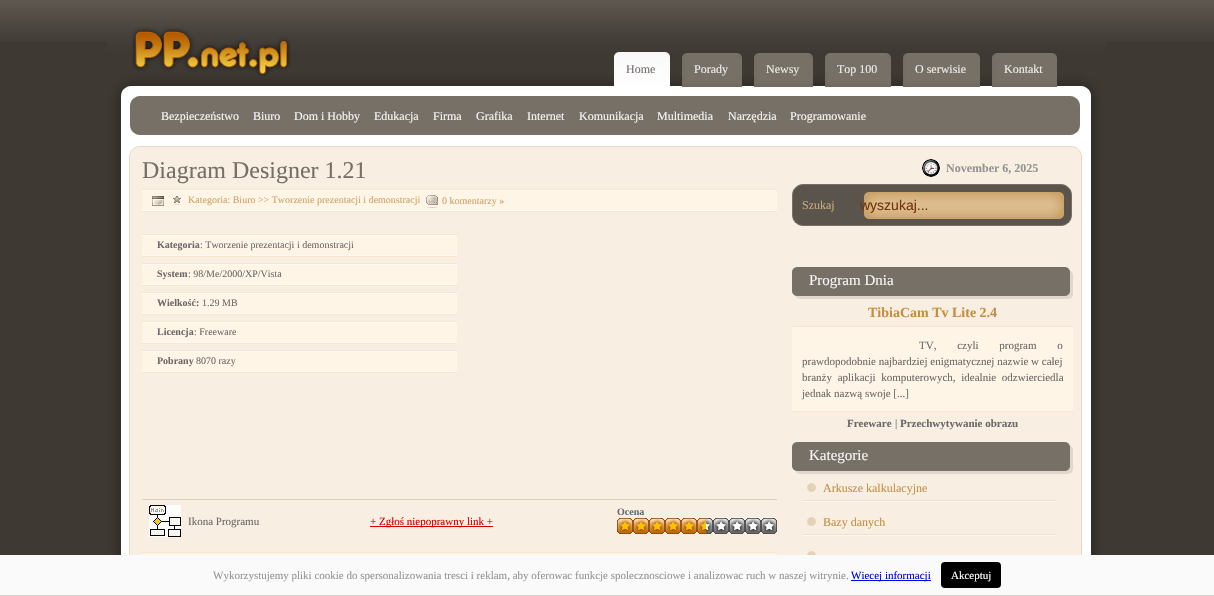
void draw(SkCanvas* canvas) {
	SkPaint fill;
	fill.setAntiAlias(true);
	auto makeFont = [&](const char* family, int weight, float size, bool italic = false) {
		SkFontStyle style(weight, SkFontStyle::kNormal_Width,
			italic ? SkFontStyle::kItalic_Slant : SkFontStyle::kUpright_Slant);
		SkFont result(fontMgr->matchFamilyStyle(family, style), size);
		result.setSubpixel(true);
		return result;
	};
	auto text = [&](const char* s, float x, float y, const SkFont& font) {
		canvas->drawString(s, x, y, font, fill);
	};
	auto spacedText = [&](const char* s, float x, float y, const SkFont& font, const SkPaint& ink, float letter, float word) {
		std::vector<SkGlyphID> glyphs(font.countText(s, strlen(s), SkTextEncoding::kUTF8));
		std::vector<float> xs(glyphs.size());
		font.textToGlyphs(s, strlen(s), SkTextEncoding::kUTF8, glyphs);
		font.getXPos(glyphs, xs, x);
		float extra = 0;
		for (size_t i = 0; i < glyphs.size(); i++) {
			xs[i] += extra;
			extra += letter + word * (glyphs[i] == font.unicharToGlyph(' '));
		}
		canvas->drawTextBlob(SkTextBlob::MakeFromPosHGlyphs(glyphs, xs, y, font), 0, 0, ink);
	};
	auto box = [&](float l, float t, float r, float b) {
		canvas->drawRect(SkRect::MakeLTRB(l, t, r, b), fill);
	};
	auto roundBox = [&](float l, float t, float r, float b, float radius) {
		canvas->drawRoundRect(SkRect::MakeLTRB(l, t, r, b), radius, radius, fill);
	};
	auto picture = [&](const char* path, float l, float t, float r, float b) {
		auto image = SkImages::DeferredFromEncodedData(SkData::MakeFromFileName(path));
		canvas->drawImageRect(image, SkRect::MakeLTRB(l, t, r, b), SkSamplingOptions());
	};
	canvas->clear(0xFF3E3933);
	picture("image0.png", 0, 0, 1214, 42);
	picture("image1.png", 107, 156, 1107, 555);
	picture("image2.png", 107, 0, 1107, 156);
	picture("image3.png", 132, 27, 291, 77);
	picture("image4.png", 614, 52, 670, 86);
	picture("image5.png", 665, 52, 670, 57);
	picture("image6.png", 682, 53, 742, 87);
	picture("image7.png", 737, 53, 742, 58);
	picture("image8.png", 754, 53, 813, 87);
	picture("image7.png", 808, 53, 813, 58);
	picture("image9.png", 825, 53, 891, 87);
	picture("image7.png", 886, 53, 891, 58);
	picture("image10.png", 903, 53, 980, 87);
	picture("image7.png", 975, 53, 980, 58);
	picture("image11.png", 992, 53, 1057, 87);
	picture("image7.png", 1052, 53, 1057, 58);
	picture("image12.png", 142, 189, 777, 212);
	picture("image13.png", 152, 196, 164, 206);
	picture("image14.png", 173, 196, 181, 205);
	picture("image15.png", 426, 195, 438, 208);
	picture("image16.png", 142, 234, 457, 257);
	picture("image16.png", 142, 263, 457, 286);
	picture("image16.png", 142, 292, 457, 315);
	picture("image16.png", 142, 321, 457, 344);
	picture("image16.png", 142, 350, 457, 373);
	fill.setColor(0xFFD1D1BA);
	box(142, 499, 777, 500);
	picture("image17.png", 149, 505, 181, 537);
	picture("image18.png", 706, 518, 777, 534);
	picture("image19.png", 617, 518, 706, 534);
	fill.setColor(0xFFCE0000);
	box(370, 526, 484, 527);
	box(484, 526, 493, 527);
	fill.setColor(0xFFFFF5E6);
	box(142, 553, 777, 555);
	fill.setColor(0xFFF8E7CF);
	box(142, 552, 777, 553);
	picture("image20.png", 922, 159, 940, 177);
	picture("image21.png", 792, 184, 1072, 226);
	picture("image22.png", 792, 267, 1073, 299);
	fill.setColor(0xFFFFF5E6);
	box(792, 327, 1073, 411);
	fill.setColor(0xFFF8E7CF);
	box(792, 326, 1073, 327);
	box(792, 411, 1073, 412);
	picture("image22.png", 792, 442, 1073, 474);
	picture("image23.png", 802, 483, 1056, 502);
	picture("image23.png", 802, 517, 1056, 536);
	picture("image24.png", 802, 551, 1056, 555);
	fill.setColor(0xFFFAFAFA);
	box(0, 555, 1214, 595);
	fill.setColor(0xFFD3D0D0);
	box(0, 595, 1214, 596);
	fill.setColor(0xFF0000EE);
	box(851, 580, 931, 581);
	fill.setColor(0xFF000000);
	roundBox(941, 562, 1001, 588, 4);
	auto font1 = makeFont("Liberation Serif", 400, 12);
	fill.setColor(0xFF766F66);
	text("Home", 626, 73, font1);
	fill.setColor(0xFFEDECEB);
	text("Porady", 694, 73, font1);
	text("Newsy", 766, 73, font1);
	text("Top 100", 837, 73, font1);
	text("O serwisie", 915, 73, font1);
	text("Kontakt", 1004, 73, font1);
	fill.setColor(0xFFF6F5F5);
	text("Bezpieczeństwo", 161, 120, font1);
	text("Biuro", 253, 120, font1);
	text("Dom i Hobby", 294, 120, font1);
	text("Edukacja", 374, 120, font1);
	text("Firma", 433, 120, font1);
	text("Grafika", 476, 120, font1);
	text("Internet", 527, 120, font1);
	text("Komunikacja", 579, 120, font1);
	text("Multimedia", 657, 120, font1);
	text("Narzędzia", 728, 120, font1);
	text("Programowanie", 790, 120, font1);
	auto font2 = makeFont("Liberation Serif", 400, 24);
	fill.setColor(0xFF766F66);
	text("Diagram Designer 1.21", 142, 178, font2);
	auto font3 = makeFont("Liberation Serif", 400, 10);
	fill.setColor(0xFFCBA369);
	text("Kategoria: Biuro >> Tworzenie prezentacji i demonstracji", 188, 203, font3);
	text("0 komentarzy »", 442, 204, font3);
	auto font4 = makeFont("Liberation Serif", 700, 10);
	fill.setColor(0xFF6B6969);
	text("Kategoria", 157, 248, font4);
	text(": Tworzenie prezentacji i demonstracji", 200, 248, font3);
	text("System", 157, 277, font4);
	text(": 98/Me/2000/XP/Vista", 188, 277, font3);
	text("Wielkość:", 157, 306, font4);
	text("1.29 MB", 202, 306, font3);
	text("Licencja", 157, 335, font4);
	text(": Freeware", 194, 335, font3);
	text("Pobrany", 157, 364, font4);
	text("8070 razy", 196, 364, font3);
	text("Ocena", 617, 515, font4);
	auto font5 = makeFont("Liberation Serif", 400, 11);
	text("Ikona Programu", 188, 525, font5);
	fill.setColor(0xFFCE0000);
	text("+ Zgłoś niepoprawny link +", 370, 525, font5);
	auto font6 = makeFont("Liberation Serif", 700, 12);
	fill.setColor(0xFF969393);
	text("November 6, 2025", 946, 172, font6);
	fill.setColor(0xFFC8AA80);
	text("Szukaj", 802, 209, font1);
	auto font7 = makeFont("Liberation Sans", 400, 14);
	fill.setColor(0xFF73330F);
	text("wyszukaj...", 860, 210, font7);
	auto font8 = makeFont("Liberation Serif", 400, 15);
	fill.setColor(0xFFF6F5F5);
	text("Program Dnia", 809, 285, font8);
	auto font9 = makeFont("Liberation Serif", 700, 14);
	fill.setColor(0xFFC48F42);
	text("TibiaCam Tv Lite 2.4", 868, 317, font9);
	fill.setColor(0xFF6B6969);
	spacedText("TV, czyli program o", 919, 349, font5, fill, 0, 18);
	text("prawdopodobnie najbardziej enigmatycznej nazwie w całej", 802, 365, font5);
	spacedText("branży aplikacji komputerowych, idealnie odzwierciedla", 802, 381, font5, fill, 0, 3);
	text("jednak nazwą swoje [...]", 802, 397, font5);
	auto font10 = makeFont("Liberation Serif", 700, 11);
	text("Freeware", 847, 427, font10);
	text("|", 895, 427, font5);
	text("Przechwytywanie obrazu", 900, 427, font10);
	fill.setColor(0xFFF6F5F5);
	text("Kategorie", 809, 460, font8);
	fill.setColor(0xFFC48F42);
	text("Arkusze kalkulacyjne", 823, 492, font1);
	text("Bazy danych", 823, 526, font1);
	fill.setColor(0xFF969393);
	text("Wykorzystujemy pliki cookie do spersonalizowania tresci i reklam, aby oferowac funkcje spolecznosciowe i analizowac ruch w naszej witrynie.", 213, 579, font5);
	fill.setColor(0xFF0000EE);
	text("Wiecej informacji", 851, 579, font5);
	fill.setColor(0xFFFFFFFF);
	text("Akceptuj", 951, 579, font5);
}
